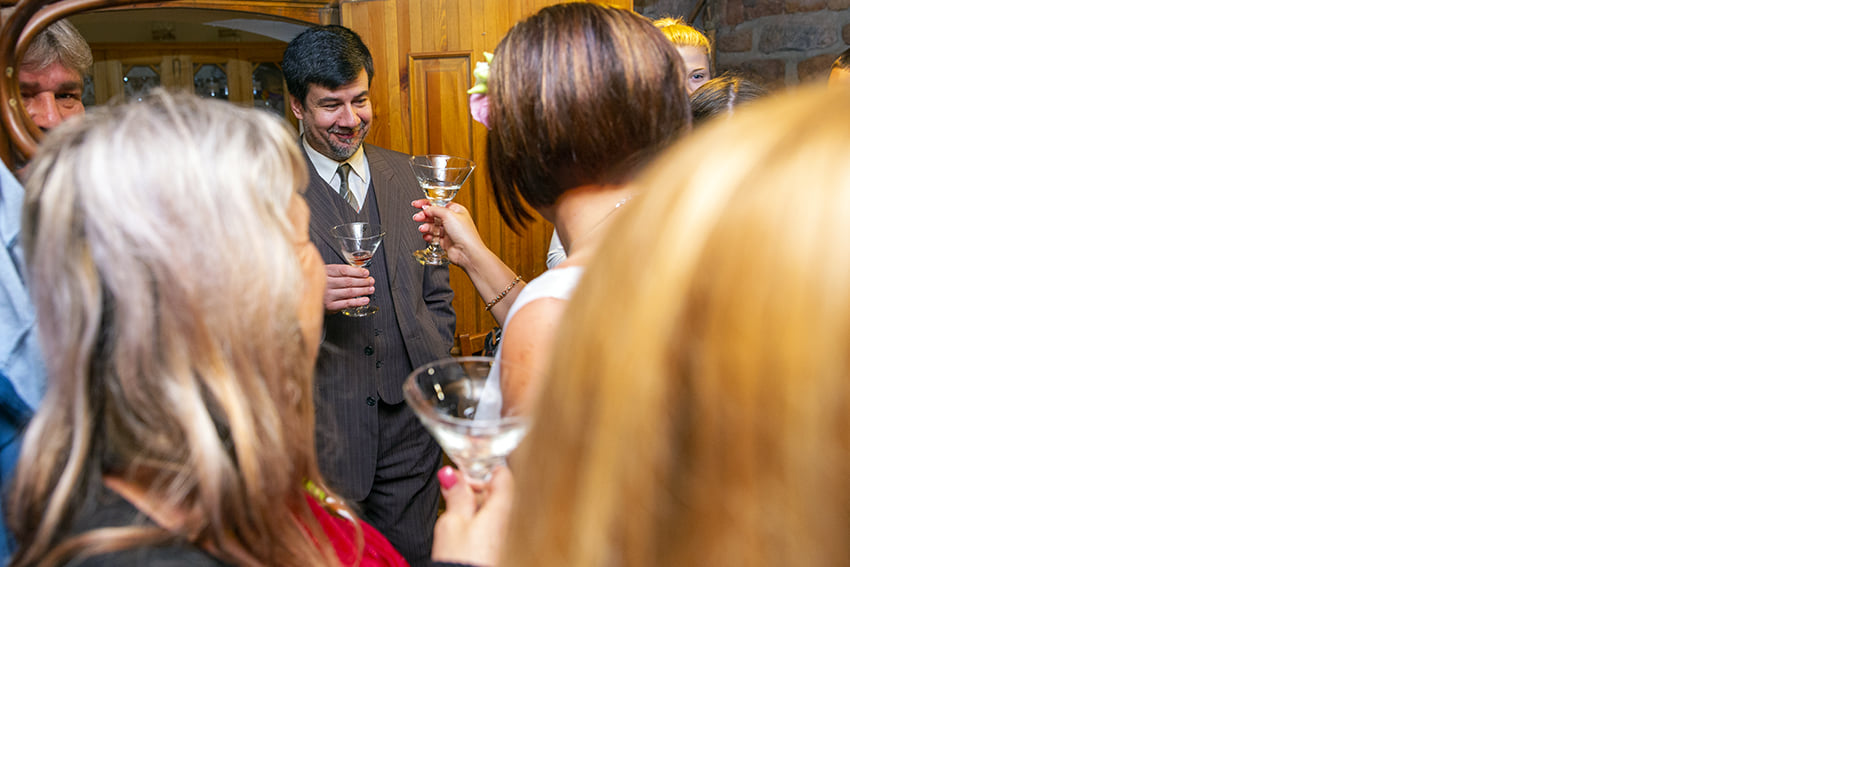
void draw(SkCanvas* canvas) {
	SkPaint fill;
	fill.setAntiAlias(true);
	auto picture = [&](const char* path, float l, float t, float r, float b) {
		auto image = SkImages::DeferredFromEncodedData(SkData::MakeFromFileName(path));
		canvas->drawImageRect(image, SkRect::MakeLTRB(l, t, r, b), SkSamplingOptions());
	};
	canvas->clear(0xFFFFFFFF);
	picture("image0.png", 0, 0, 850, 567);
}
